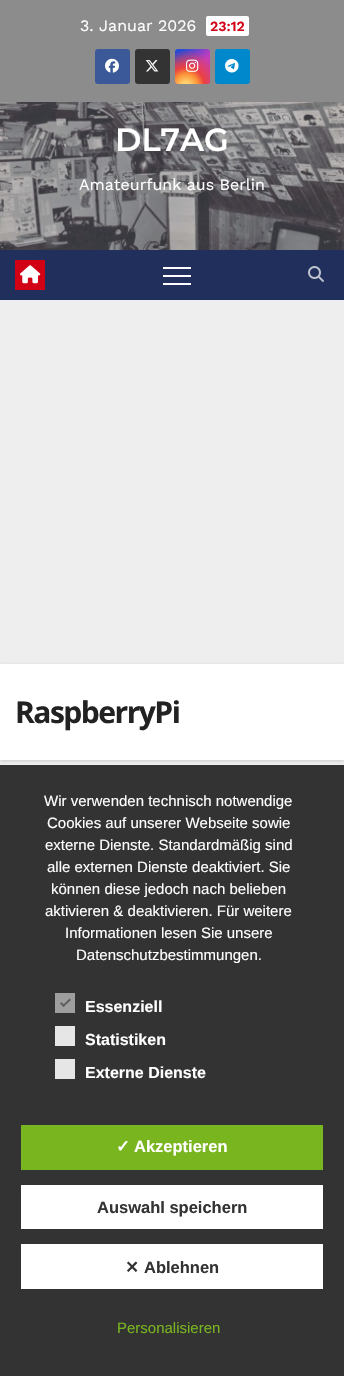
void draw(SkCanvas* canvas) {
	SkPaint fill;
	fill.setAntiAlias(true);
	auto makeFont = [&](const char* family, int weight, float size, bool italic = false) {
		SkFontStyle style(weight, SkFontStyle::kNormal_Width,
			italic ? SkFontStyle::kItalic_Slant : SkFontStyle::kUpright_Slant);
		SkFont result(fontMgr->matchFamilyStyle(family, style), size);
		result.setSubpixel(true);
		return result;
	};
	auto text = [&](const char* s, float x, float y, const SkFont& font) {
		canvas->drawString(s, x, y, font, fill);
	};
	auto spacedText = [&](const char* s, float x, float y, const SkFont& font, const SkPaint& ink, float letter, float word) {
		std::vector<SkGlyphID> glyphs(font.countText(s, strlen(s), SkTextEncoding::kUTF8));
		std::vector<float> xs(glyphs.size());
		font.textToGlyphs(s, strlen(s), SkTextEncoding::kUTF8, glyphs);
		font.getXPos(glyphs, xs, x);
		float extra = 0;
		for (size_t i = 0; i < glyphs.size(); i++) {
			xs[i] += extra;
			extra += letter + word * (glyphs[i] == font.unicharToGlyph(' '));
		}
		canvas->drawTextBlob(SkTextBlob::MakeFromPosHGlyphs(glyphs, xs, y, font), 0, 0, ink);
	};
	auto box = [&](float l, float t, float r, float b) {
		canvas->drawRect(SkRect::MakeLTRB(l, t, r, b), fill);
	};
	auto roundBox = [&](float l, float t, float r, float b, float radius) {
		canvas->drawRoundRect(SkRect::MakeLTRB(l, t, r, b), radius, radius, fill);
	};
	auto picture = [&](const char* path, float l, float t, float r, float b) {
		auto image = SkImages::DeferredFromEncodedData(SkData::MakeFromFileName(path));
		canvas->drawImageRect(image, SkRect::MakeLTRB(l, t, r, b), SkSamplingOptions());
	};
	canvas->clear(0xFFEEEEEE);
	fill.setColor(0xFF8C8C8C);
	box(0, 0, 344, 102);
	fill.setColor(0xFFFFFFFF);
	roundBox(206, 16, 249, 36, 2);
	fill.setColor(0xFF3B5998);
	roundBox(95, 49, 130, 84, 3);
	picture("image0.png", 105, 58, 119, 73);
	fill.setColor(0xFF333333);
	roundBox(135, 49, 170, 84, 3);
	picture("image1.png", 145, 60, 159, 72);
	{
		const SkColor colors[] = {0xFF234BD7, 0xFFC33CBE};
		const float stops[] = {0.12f, 0.58f};
		const SkPoint ends[] = {{175, 49}, {210, 84}};
		fill.setShader(SkGradientShader::MakeLinear(ends, colors, stops, 2, SkTileMode::kClamp));
		fill.setAlpha(255);
	}
	roundBox(175, 49, 210, 84, 3);
	{
		const SkColor colors[] = {0xFFFFE17D, 0xFFFFCD69, 0xFFFA9137, 0xFFEB4141, 0x00EB4141};
		const float stops[] = {0, 0.1f, 0.28f, 0.42f, 0.82f};
		fill.setShader(SkGradientShader::MakeRadial({186, 86}, 44, colors, stops, 5, SkTileMode::kClamp));
		fill.setAlpha(255);
	}
	roundBox(175, 49, 210, 84, 3);
	picture("image2.png", 186, 59, 199, 72);
	fill.setShader(nullptr);
	fill.setColor(0xFF0088CC);
	roundBox(215, 49, 250, 84, 3);
	picture("image3.png", 225, 59, 239, 73);
	picture("image4.png", 0, 102, 344, 250);
	fill.setColor(0xFF202F5B);
	box(0, 250, 344, 300);
	fill.setColor(0xFFD10014);
	box(15, 260, 45, 290);
	picture("image5.png", 20, 265, 41, 284);
	fill.setColor(0xFFFFFFFF);
	box(163, 267, 191, 269);
	box(163, 275, 191, 277);
	box(163, 283, 191, 285);
	picture("image6.png", 308, 266, 324, 282);
	fill.setColor(0x26000000);
	fill.setMaskFilter(SkMaskFilter::MakeBlur(kNormal_SkBlurStyle, 1.5f));
	canvas->drawRect(SkRect::MakeLTRB(0, 665, 344, 761), fill);
	fill.setMaskFilter(nullptr);
	fill.setColor(0xFFFFFFFF);
	box(0, 664, 344, 760);
	fill.setColor(0xFF333333);
	box(0, 765, 344, 1376);
	fill.setColor(0xFF9E9E9E);
	box(55, 993, 75, 1013);
	fill.setColor(0xFF5E5E5E);
	canvas->drawPath(SkPathBuilder().moveTo(69.5f, 998.5f).lineTo(71, 1000).lineTo(63.5f, 1007).lineTo(62.5f, 1005.5f).close().detach(), fill);
	canvas->drawPath(SkPathBuilder().moveTo(61.5f, 1002).lineTo(65, 1005.5f).lineTo(63.5f, 1007).lineTo(60, 1003.5f).close().detach(), fill);
	fill.setColor(0xFFE6E6E6);
	box(55, 1026, 75, 1046);
	box(55, 1059, 75, 1079);
	fill.setColor(0xFF79B51F);
	box(21, 1125, 323, 1170);
	fill.setColor(0xFFFFFFFF);
	box(21, 1185, 323, 1229);
	box(21, 1244, 323, 1289);
	auto font1 = makeFont("Work Sans", 400, 16);
	text("3. Januar 2026", 80, 31, font1);
	auto font2 = makeFont("Work Sans", 600, 14);
	fill.setColor(0xFFD10014);
	text("23:12", 210, 31, font2);
	auto font3 = makeFont("Montserrat", 600, 32);
	fill.setColor(0xFFFFFFFF);
	text("DL7AG", 115, 151, font3);
	text("Amateurfunk aus Berlin", 79, 190, font1);
	auto font4 = makeFont("Open Sans", 700, 30);
	fill.setColor(0xFF222222);
	spacedText("RaspberryPi", 15, 723, font4, fill, -1.5f, 0);
	auto font5 = makeFont("Liberation Sans", 400, 15);
	fill.setColor(0xFFFFFFFF);
	text("Wir verwenden technisch notwendige", 44, 806, font5);
	text("Cookies auf unserer Webseite sowie", 47, 828, font5);
	text("externe Dienste. Standardmäßig sind", 45, 850, font5);
	text("alle externen Dienste deaktiviert. Sie", 47, 872, font5);
	text("können diese jedoch nach belieben", 51, 894, font5);
	text("aktivieren & deaktivieren. Für weitere", 45, 916, font5);
	text("Informationen lesen Sie unsere", 65, 938, font5);
	text("Datenschutzbestimmungen.", 76, 960, font5);
	auto font6 = makeFont("Liberation Sans", 700, 16);
	text("Essenziell", 85, 1012, font6);
	text("Statistiken", 85, 1045, font6);
	text("Externe Dienste", 85, 1078, font6);
	auto font7 = makeFont("DejaVu Sans", 700, 16.5f);
	text("✓", 116, 1152, font7);
	auto font8 = makeFont("Liberation Sans", 700, 16.5f);
	text("Akzeptieren", 134, 1152, font8);
	fill.setColor(0xFF333333);
	text("Auswahl speichern", 97, 1213, font8);
	text("✕", 125, 1273, font7);
	text("Ablehnen", 144, 1273, font8);
	fill.setColor(0xFF79B51F);
	text("Personalisieren", 117, 1333, font5);
}
